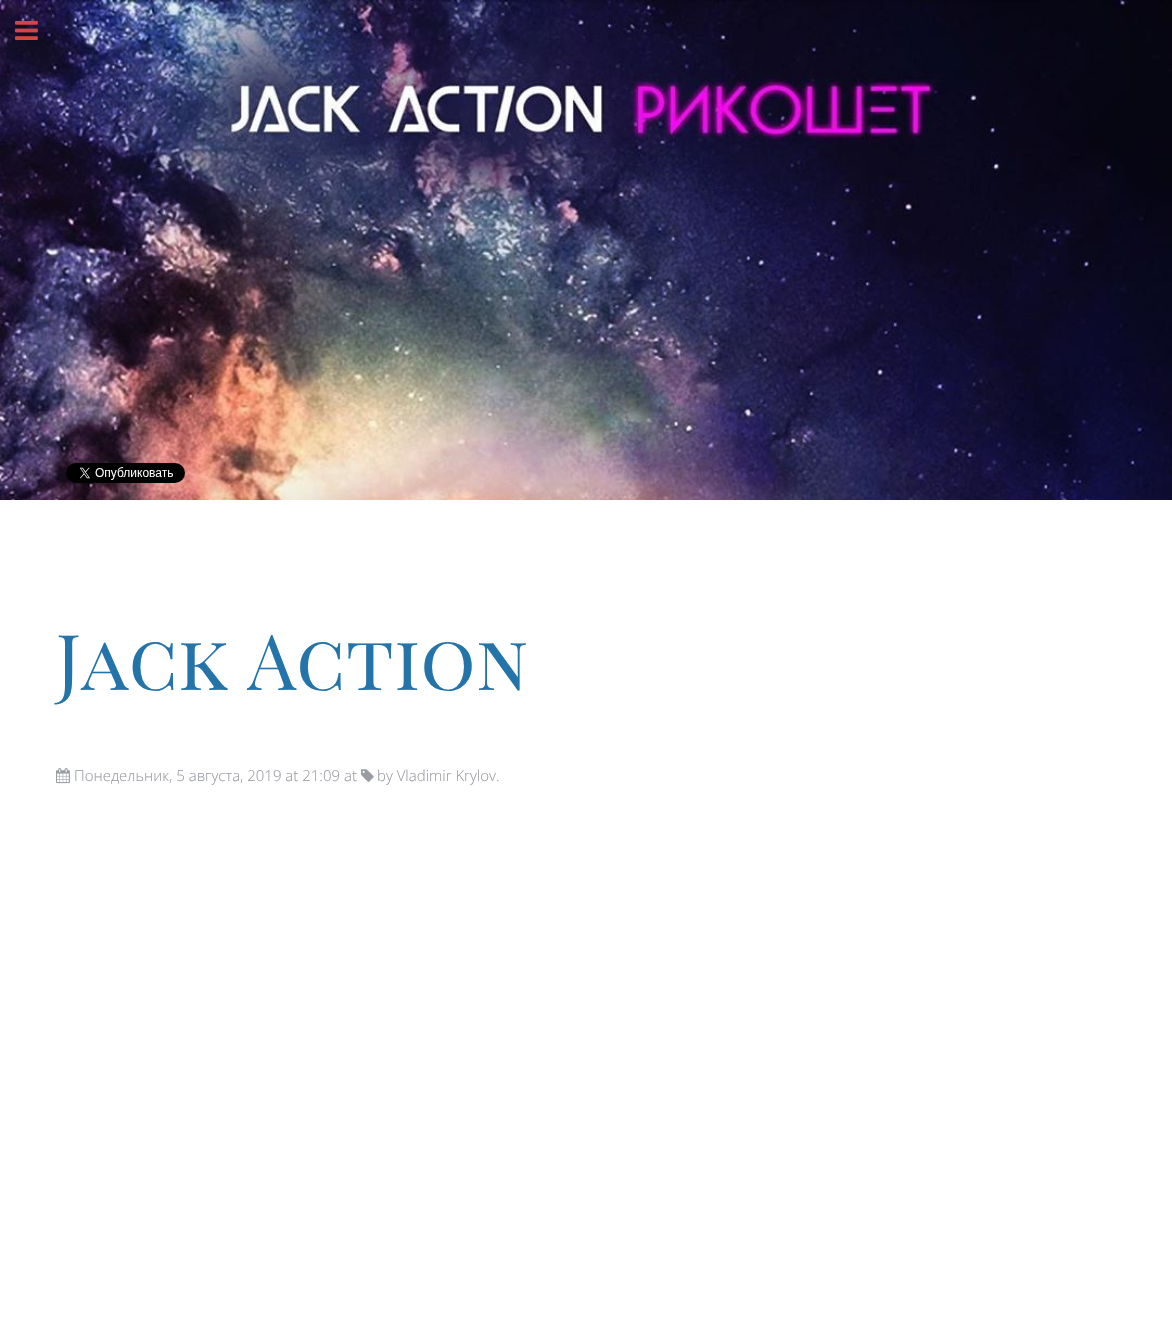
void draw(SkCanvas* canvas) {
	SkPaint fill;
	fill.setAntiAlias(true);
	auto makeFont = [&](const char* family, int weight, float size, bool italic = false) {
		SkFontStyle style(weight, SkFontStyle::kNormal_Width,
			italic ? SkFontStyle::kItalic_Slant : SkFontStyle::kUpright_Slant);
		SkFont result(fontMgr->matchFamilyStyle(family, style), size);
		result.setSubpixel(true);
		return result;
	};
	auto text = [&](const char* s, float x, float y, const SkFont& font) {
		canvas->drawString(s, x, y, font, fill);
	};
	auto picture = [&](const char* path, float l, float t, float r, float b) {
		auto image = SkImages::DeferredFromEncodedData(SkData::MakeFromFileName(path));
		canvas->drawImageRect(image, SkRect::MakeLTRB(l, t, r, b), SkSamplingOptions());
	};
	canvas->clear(0xFFFFFFFF);
	picture("image1.png", 0, 0, 1172, 500);
	picture("image0.png", 15, 20, 38, 40);
	picture("image2.png", 66, 463, 185, 483);
	picture("image3.png", 56, 768, 70, 784);
	picture("image4.png", 361, 769, 374, 782);
	auto font1 = makeFont("Playfair Display SC", 400, 77);
	fill.setColor(0xFF2574A9);
	text("Jack Action", 56, 690, font1);
	auto font2 = makeFont("Open Sans", 300, 15);
	fill.setColor(0xFF999CA3);
	text("Понедельник, 5 августа, 2019 at 21:09 at", 74, 781, font2);
	text("by Vladimir Krylov.", 377, 781, font2);
}
